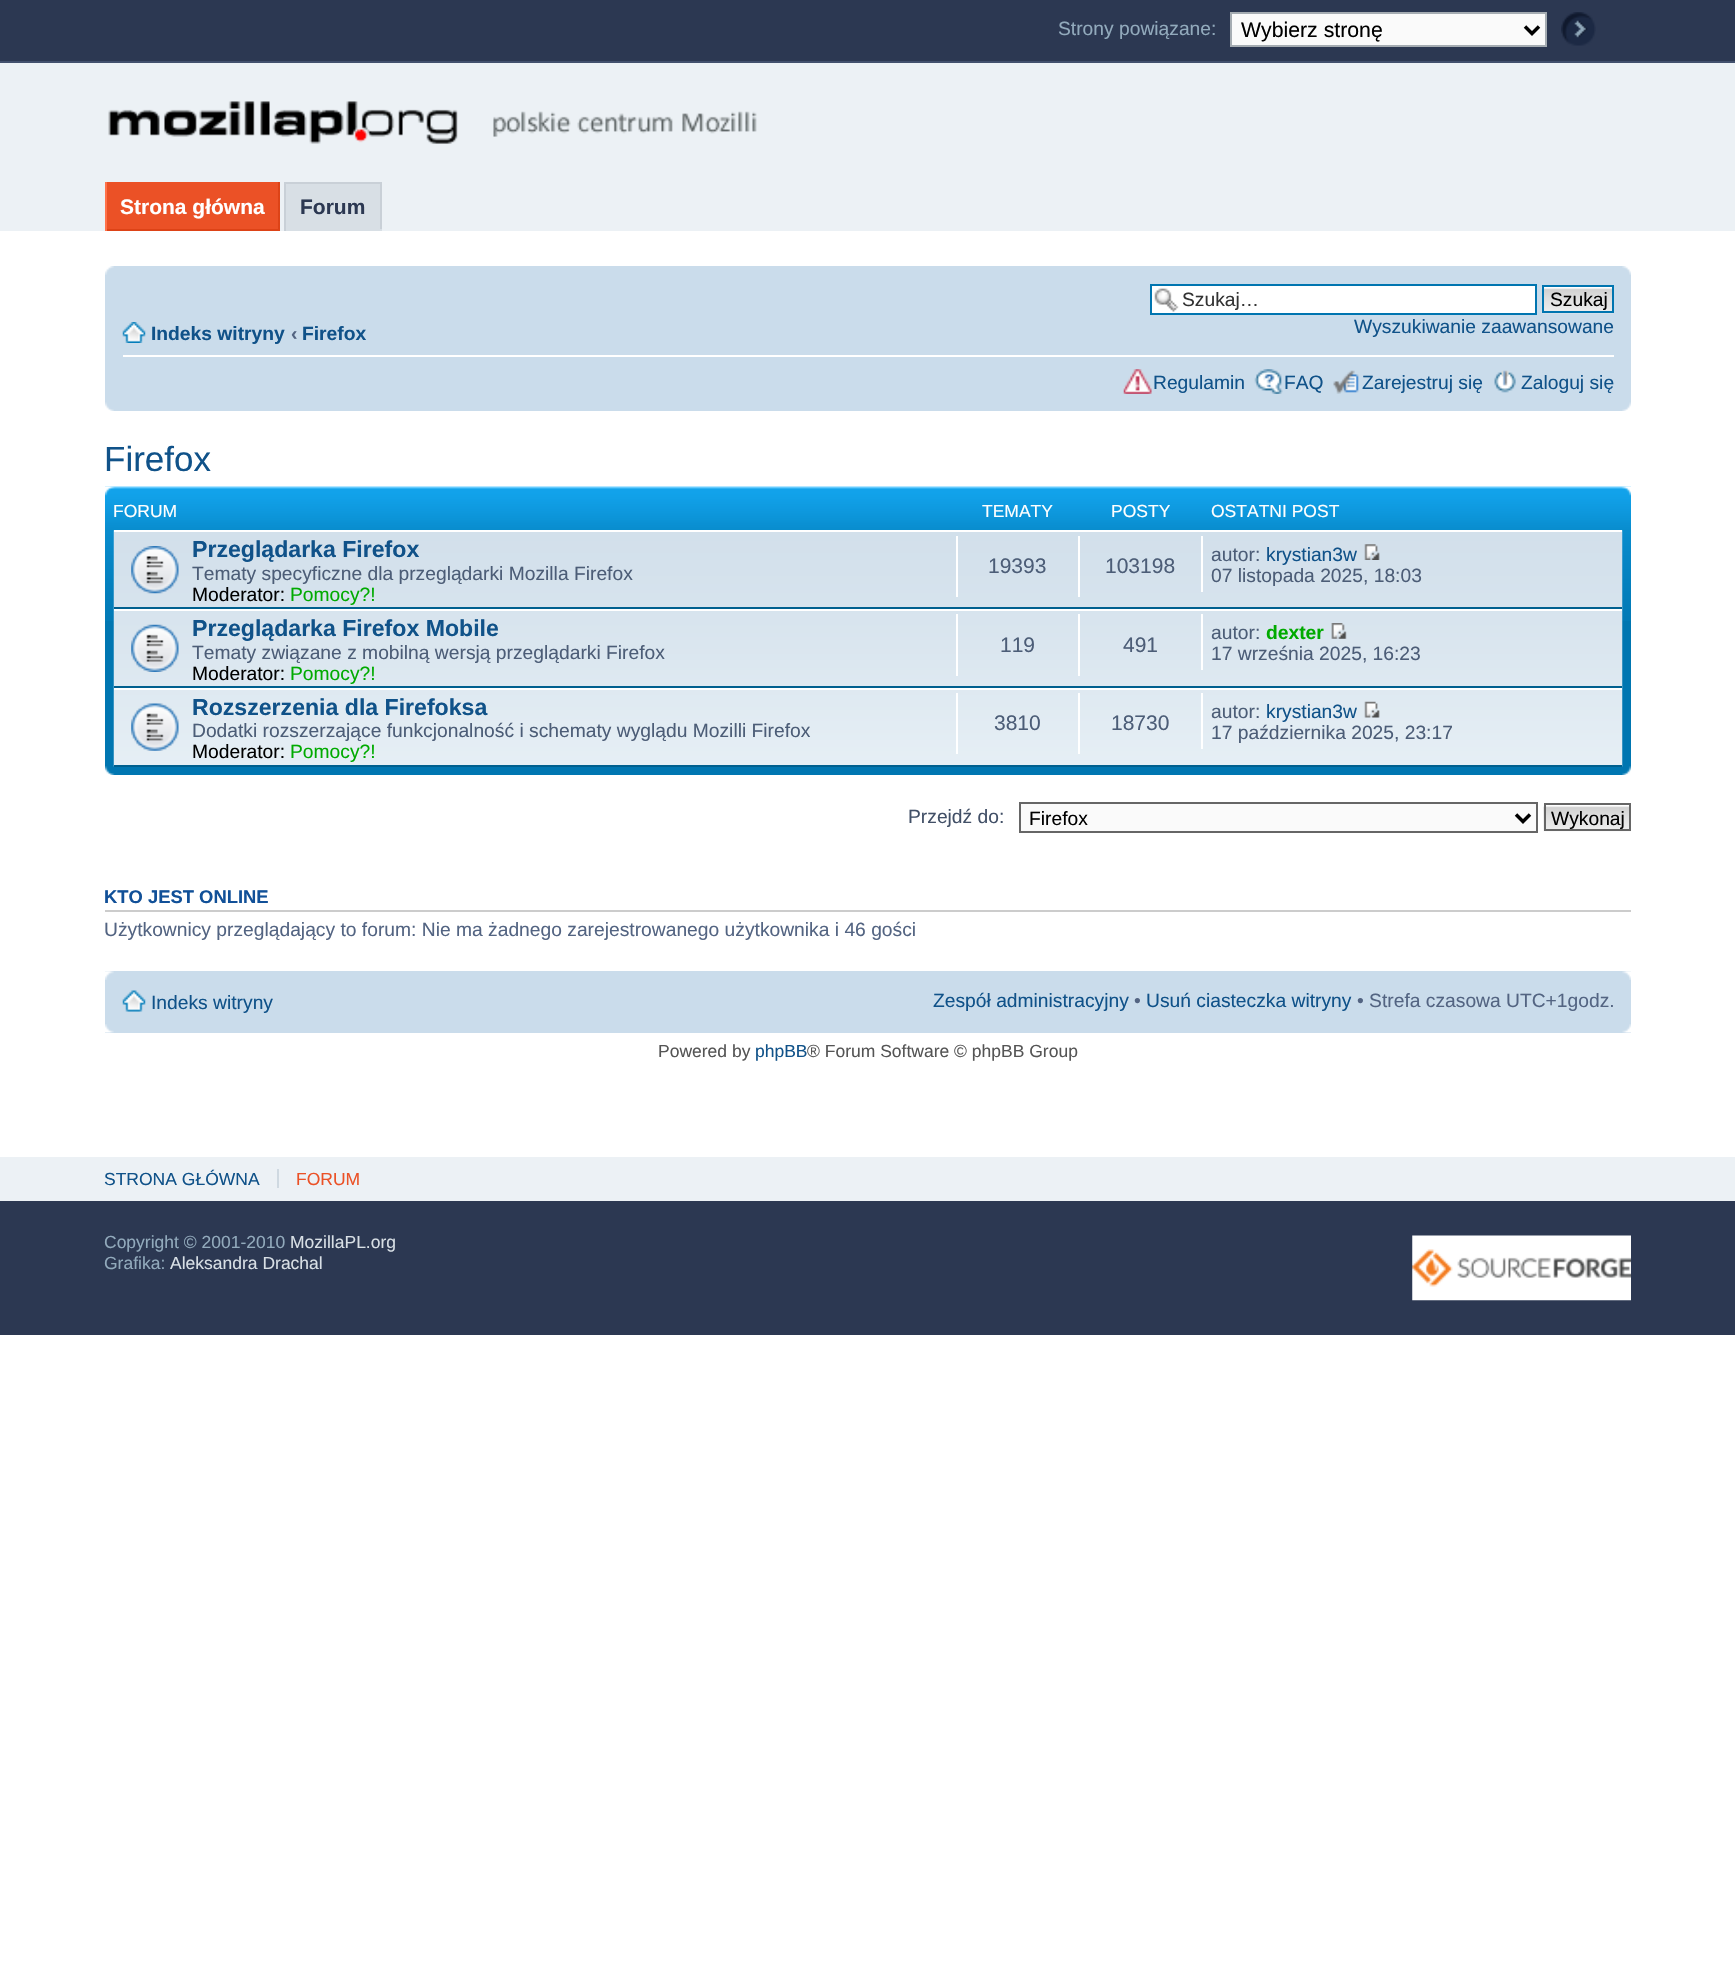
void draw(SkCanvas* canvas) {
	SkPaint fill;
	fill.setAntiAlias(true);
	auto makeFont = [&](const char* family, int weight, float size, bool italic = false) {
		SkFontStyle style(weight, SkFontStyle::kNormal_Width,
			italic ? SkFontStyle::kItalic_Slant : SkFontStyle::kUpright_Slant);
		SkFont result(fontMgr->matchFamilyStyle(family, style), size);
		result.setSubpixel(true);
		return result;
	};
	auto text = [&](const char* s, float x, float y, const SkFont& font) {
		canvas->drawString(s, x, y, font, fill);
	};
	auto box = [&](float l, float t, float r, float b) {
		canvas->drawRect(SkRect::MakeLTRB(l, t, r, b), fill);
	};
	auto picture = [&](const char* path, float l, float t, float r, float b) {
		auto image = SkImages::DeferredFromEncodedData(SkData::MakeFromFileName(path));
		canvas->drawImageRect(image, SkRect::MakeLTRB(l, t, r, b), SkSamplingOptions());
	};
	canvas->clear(0xFFFFFFFF);
	fill.setColor(0xFF2C3852);
	box(0, 0, 1735, 61);
	fill.setColor(0xFF42506D);
	box(0, 61, 1735, 63);
	fill.setColor(0xFFFAFAFA);
	canvas->drawRect(SkRect::MakeLTRB(1231, 13, 1546, 46), fill);
	fill.setStyle(SkPaint::kStroke_Style);
	fill.setStrokeWidth(2);
	fill.setColor(0xFFA5ACB2);
	canvas->drawRect(SkRect::MakeLTRB(1231, 13, 1546, 46), fill);
	fill.setStrokeWidth(3.5f);
	fill.setColor(0xFF000000);
	canvas->drawPath(SkPathBuilder().moveTo(1525, 26.5f).lineTo(1532, 33.5f).lineTo(1539, 26.5f).detach(), fill);
	picture("image0.png", 1561, 12, 1596, 46);
	fill.setStyle(SkPaint::kFill_Style);
	fill.setColor(0xFFECF1F5);
	box(0, 63, 1735, 231);
	picture("image1.png", 108, 101, 757, 144);
	fill.setColor(0xFFEB5126);
	box(107, 182, 278, 229);
	fill.setColor(0xFFDD4317);
	box(278, 182, 280, 231);
	box(105, 229, 280, 231);
	fill.setColor(0xFFFF724A);
	box(105, 182, 107, 231);
	fill.setColor(0xFFD8DFE5);
	box(286, 184, 380, 229);
	fill.setColor(0xFFC9D0D7);
	box(284, 182, 382, 184);
	box(380, 182, 382, 231);
	fill.setColor(0xFFD8DFE5);
	box(284, 229, 382, 231);
	fill.setColor(0xFFC9D0D7);
	box(284, 182, 286, 231);
	fill.setColor(0xFFCADCEB);
	box(105, 266, 1631, 411);
	picture("image2.png", 105, 266, 114, 275);
	picture("image3.png", 1622, 266, 1631, 275);
	fill.setColor(0xFFFFFFFF);
	box(123, 355, 1614, 357);
	picture("image4.png", 122, 322, 146, 343);
	box(1152, 286, 1535, 313);
	picture("image5.png", 1154, 288, 1179, 312);
	fill.setStyle(SkPaint::kStroke_Style);
	fill.setStrokeWidth(2);
	fill.setColor(0xFF0075B0);
	canvas->drawRect(SkRect::MakeLTRB(1151, 285, 1536, 314), fill);
	picture("image6.png", 1541, 287, 1614, 314);
	canvas->drawRect(SkRect::MakeLTRB(1543, 286, 1613, 312), fill);
	picture("image7.png", 1123, 369, 1152, 394);
	picture("image8.png", 1254, 369, 1283, 394);
	picture("image9.png", 1333, 370, 1359, 394);
	picture("image10.png", 1494, 370, 1516, 393);
	picture("image11.png", 105, 402, 114, 411);
	picture("image12.png", 1622, 402, 1631, 411);
	fill.setStyle(SkPaint::kFill_Style);
	fill.setColor(0xFF0076B1);
	box(105, 621, 1631, 775);
	picture("image13.png", 105, 486, 1631, 621);
	picture("image14.png", 105, 486, 115, 496);
	picture("image15.png", 1621, 486, 1631, 496);
	picture("image16.png", 113, 530, 1623, 767);
	fill.setColor(0xFFFFFFFF);
	box(114, 530, 1622, 532);
	fill.setColor(0xFF00608F);
	box(114, 607, 1622, 609);
	picture("image17.png", 131, 546, 179, 594);
	fill.setColor(0xFFFFFFFF);
	box(956, 536, 958, 597);
	box(1078, 536, 1080, 597);
	box(1201, 536, 1203, 592);
	picture("image18.png", 1364, 544, 1380, 560);
	box(114, 609, 1622, 611);
	fill.setColor(0xFF00608F);
	box(114, 686, 1622, 688);
	picture("image19.png", 131, 624, 179, 672);
	fill.setColor(0xFFFFFFFF);
	box(956, 614, 958, 676);
	box(1078, 614, 1080, 676);
	box(1201, 614, 1203, 670);
	picture("image20.png", 1331, 623, 1347, 639);
	box(114, 688, 1622, 690);
	fill.setColor(0xFF00608F);
	box(114, 765, 1622, 767);
	picture("image21.png", 131, 703, 179, 751);
	fill.setColor(0xFFFFFFFF);
	box(956, 693, 958, 754);
	box(1078, 693, 1080, 754);
	box(1201, 693, 1203, 749);
	picture("image22.png", 1364, 701, 1380, 718);
	picture("image23.png", 105, 766, 115, 775);
	picture("image24.png", 1622, 766, 1631, 775);
	fill.setColor(0xFFFAFAFA);
	canvas->drawRect(SkRect::MakeLTRB(1020, 803, 1537, 832), fill);
	fill.setStyle(SkPaint::kStroke_Style);
	fill.setColor(0xFF666666);
	canvas->drawRect(SkRect::MakeLTRB(1020, 803, 1537, 832), fill);
	fill.setStrokeWidth(3.5f);
	fill.setColor(0xFF000000);
	canvas->drawPath(SkPathBuilder().moveTo(1516, 814.5f).lineTo(1523, 821.5f).lineTo(1530, 814.5f).detach(), fill);
	picture("image25.png", 1543, 805, 1631, 832);
	fill.setStrokeWidth(2);
	fill.setColor(0xFF666666);
	canvas->drawRect(SkRect::MakeLTRB(1545, 804, 1630, 830), fill);
	fill.setStyle(SkPaint::kFill_Style);
	fill.setColor(0xFFCCCCCC);
	box(105, 910, 1631, 912);
	fill.setColor(0xFFCADCEB);
	box(105, 971, 1631, 1033);
	picture("image26.png", 105, 971, 114, 980);
	picture("image27.png", 1622, 971, 1631, 980);
	picture("image28.png", 122, 990, 146, 1012);
	picture("image29.png", 105, 1024, 114, 1033);
	picture("image30.png", 1622, 1024, 1631, 1033);
	fill.setColor(0xFFECF1F5);
	box(0, 1157, 1735, 1201);
	fill.setColor(0xFFCFD9E1);
	box(277, 1169, 279, 1188);
	fill.setColor(0xFF2C3852);
	box(0, 1201, 1735, 1335);
	picture("image31.png", 1412, 1235, 1631, 1301);
	auto font1 = makeFont("Liberation Sans", 400, 19.25f);
	fill.setColor(0xFF92AABC);
	text("Strony powiązane:", 1058, 35, font1);
	auto font2 = makeFont("Liberation Sans", 400, 21.25f);
	fill.setColor(0xFF000000);
	text("Wybierz stronę", 1241, 37, font2);
	auto font3 = makeFont("Liberation Sans", 700, 21);
	fill.setColor(0xFFFFFFFF);
	text("Strona główna", 120, 214, font3);
	fill.setColor(0xFF2C3852);
	text("Forum", 300, 214, font3);
	auto font4 = makeFont("Liberation Sans", 700, 19.25f);
	fill.setColor(0xFF105289);
	text("Indeks witryny", 151, 340, font4);
	fill.setColor(0xFF536482);
	text("‹", 291, 340, font4);
	fill.setColor(0xFF105289);
	text("Firefox", 302, 340, font4);
	fill.setColor(0xFF333333);
	text("Szukaj…", 1182, 306, font1);
	fill.setColor(0xFF000000);
	text("Szukaj", 1550, 306, font1);
	fill.setColor(0xFF105289);
	text("Wyszukiwanie zaawansowane", 1354, 333, font1);
	text("Regulamin", 1153, 389, font1);
	text("FAQ", 1284, 389, font1);
	text("Zarejestruj się", 1362, 389, font1);
	text("Zaloguj się", 1521, 389, font1);
	auto font5 = makeFont("Liberation Sans", 400, 35);
	text("Firefox", 104, 471, font5);
	auto font6 = makeFont("Liberation Sans", 400, 17.5f);
	fill.setColor(0xFFFFFFFF);
	text("FORUM", 113, 517, font6);
	text("TEMATY", 982, 517, font6);
	text("POSTY", 1111, 517, font6);
	text("OSTATNI POST", 1211, 517, font6);
	auto font7 = makeFont("Liberation Sans", 700, 23.1f);
	fill.setColor(0xFF105289);
	text("Przeglądarka Firefox", 192, 557, font7);
	fill.setColor(0xFF4C5D77);
	text("Tematy specyficzne dla przeglądarki Mozilla Firefox", 192, 580, font1);
	fill.setColor(0xFF000000);
	text("Moderator:", 192, 601, font1);
	fill.setColor(0xFF00AA00);
	text("Pomocy?!", 290, 601, font1);
	auto font8 = makeFont("Liberation Sans", 400, 21);
	fill.setColor(0xFF4C5D77);
	text("19393", 988, 573, font8);
	text("103198", 1105, 573, font8);
	text("autor:", 1211, 561, font1);
	fill.setColor(0xFF105289);
	text("krystian3w", 1266, 561, font1);
	fill.setColor(0xFF4C5D77);
	text("07 listopada 2025, 18:03", 1211, 582, font1);
	fill.setColor(0xFF105289);
	text("Przeglądarka Firefox Mobile", 192, 636, font7);
	fill.setColor(0xFF4C5D77);
	text("Tematy związane z mobilną wersją przeglądarki Firefox", 192, 659, font1);
	fill.setColor(0xFF000000);
	text("Moderator:", 192, 680, font1);
	fill.setColor(0xFF00AA00);
	text("Pomocy?!", 290, 680, font1);
	fill.setColor(0xFF4C5D77);
	text("119", 1000, 652, font8);
	text("491", 1123, 652, font8);
	text("autor:", 1211, 639, font1);
	fill.setColor(0xFF00AA00);
	text("dexter", 1266, 639, font4);
	fill.setColor(0xFF4C5D77);
	text("17 września 2025, 16:23", 1211, 660, font1);
	fill.setColor(0xFF105289);
	text("Rozszerzenia dla Firefoksa", 192, 715, font7);
	fill.setColor(0xFF4C5D77);
	text("Dodatki rozszerzające funkcjonalność i schematy wyglądu Mozilli Firefox", 192, 737, font1);
	fill.setColor(0xFF000000);
	text("Moderator:", 192, 758, font1);
	fill.setColor(0xFF00AA00);
	text("Pomocy?!", 290, 758, font1);
	fill.setColor(0xFF4C5D77);
	text("3810", 994, 730, font8);
	text("18730", 1111, 730, font8);
	text("autor:", 1211, 718, font1);
	fill.setColor(0xFF105289);
	text("krystian3w", 1266, 718, font1);
	fill.setColor(0xFF4C5D77);
	text("17 października 2025, 23:17", 1211, 739, font1);
	fill.setColor(0xFF425067);
	text("Przejdź do:", 908, 823, font1);
	fill.setColor(0xFF000000);
	text("Firefox", 1029, 825, font1);
	text("Wykonaj", 1551, 825, font1);
	auto font9 = makeFont("Liberation Sans", 700, 18.4f);
	fill.setColor(0xFF115098);
	text("KTO JEST ONLINE", 104, 903, font9);
	fill.setColor(0xFF536482);
	text("Użytkownicy przeglądający to forum: Nie ma żadnego zarejestrowanego użytkownika i 46 gości", 104, 936, font1);
	fill.setColor(0xFF105289);
	text("Indeks witryny", 151, 1009, font1);
	text("Zespół administracyjny", 933, 1007, font1);
	fill.setColor(0xFF536482);
	text("•", 1134, 1007, font1);
	fill.setColor(0xFF105289);
	text("Usuń ciasteczka witryny", 1146, 1007, font1);
	fill.setColor(0xFF536482);
	text("• Strefa czasowa UTC+1godz.", 1357, 1007, font1);
	fill.setColor(0xFF555555);
	text("Powered by", 658, 1057, font6);
	fill.setColor(0xFF105289);
	text("phpBB", 755, 1057, font6);
	fill.setColor(0xFF555555);
	text("® Forum Software © phpBB Group", 807, 1057, font6);
	fill.setColor(0xFF105289);
	text("STRONA GŁÓWNA", 104, 1185, font6);
	fill.setColor(0xFFEB5126);
	text("FORUM", 296, 1185, font6);
	fill.setColor(0xFF92AABC);
	text("Copyright © 2001-2010", 104, 1248, font6);
	fill.setColor(0xFFD8DFE5);
	text("MozillaPL.org", 290, 1248, font6);
	fill.setColor(0xFF92AABC);
	text("Grafika:", 104, 1269, font6);
	fill.setColor(0xFFD8DFE5);
	text("Aleksandra Drachal", 170, 1269, font6);
}
